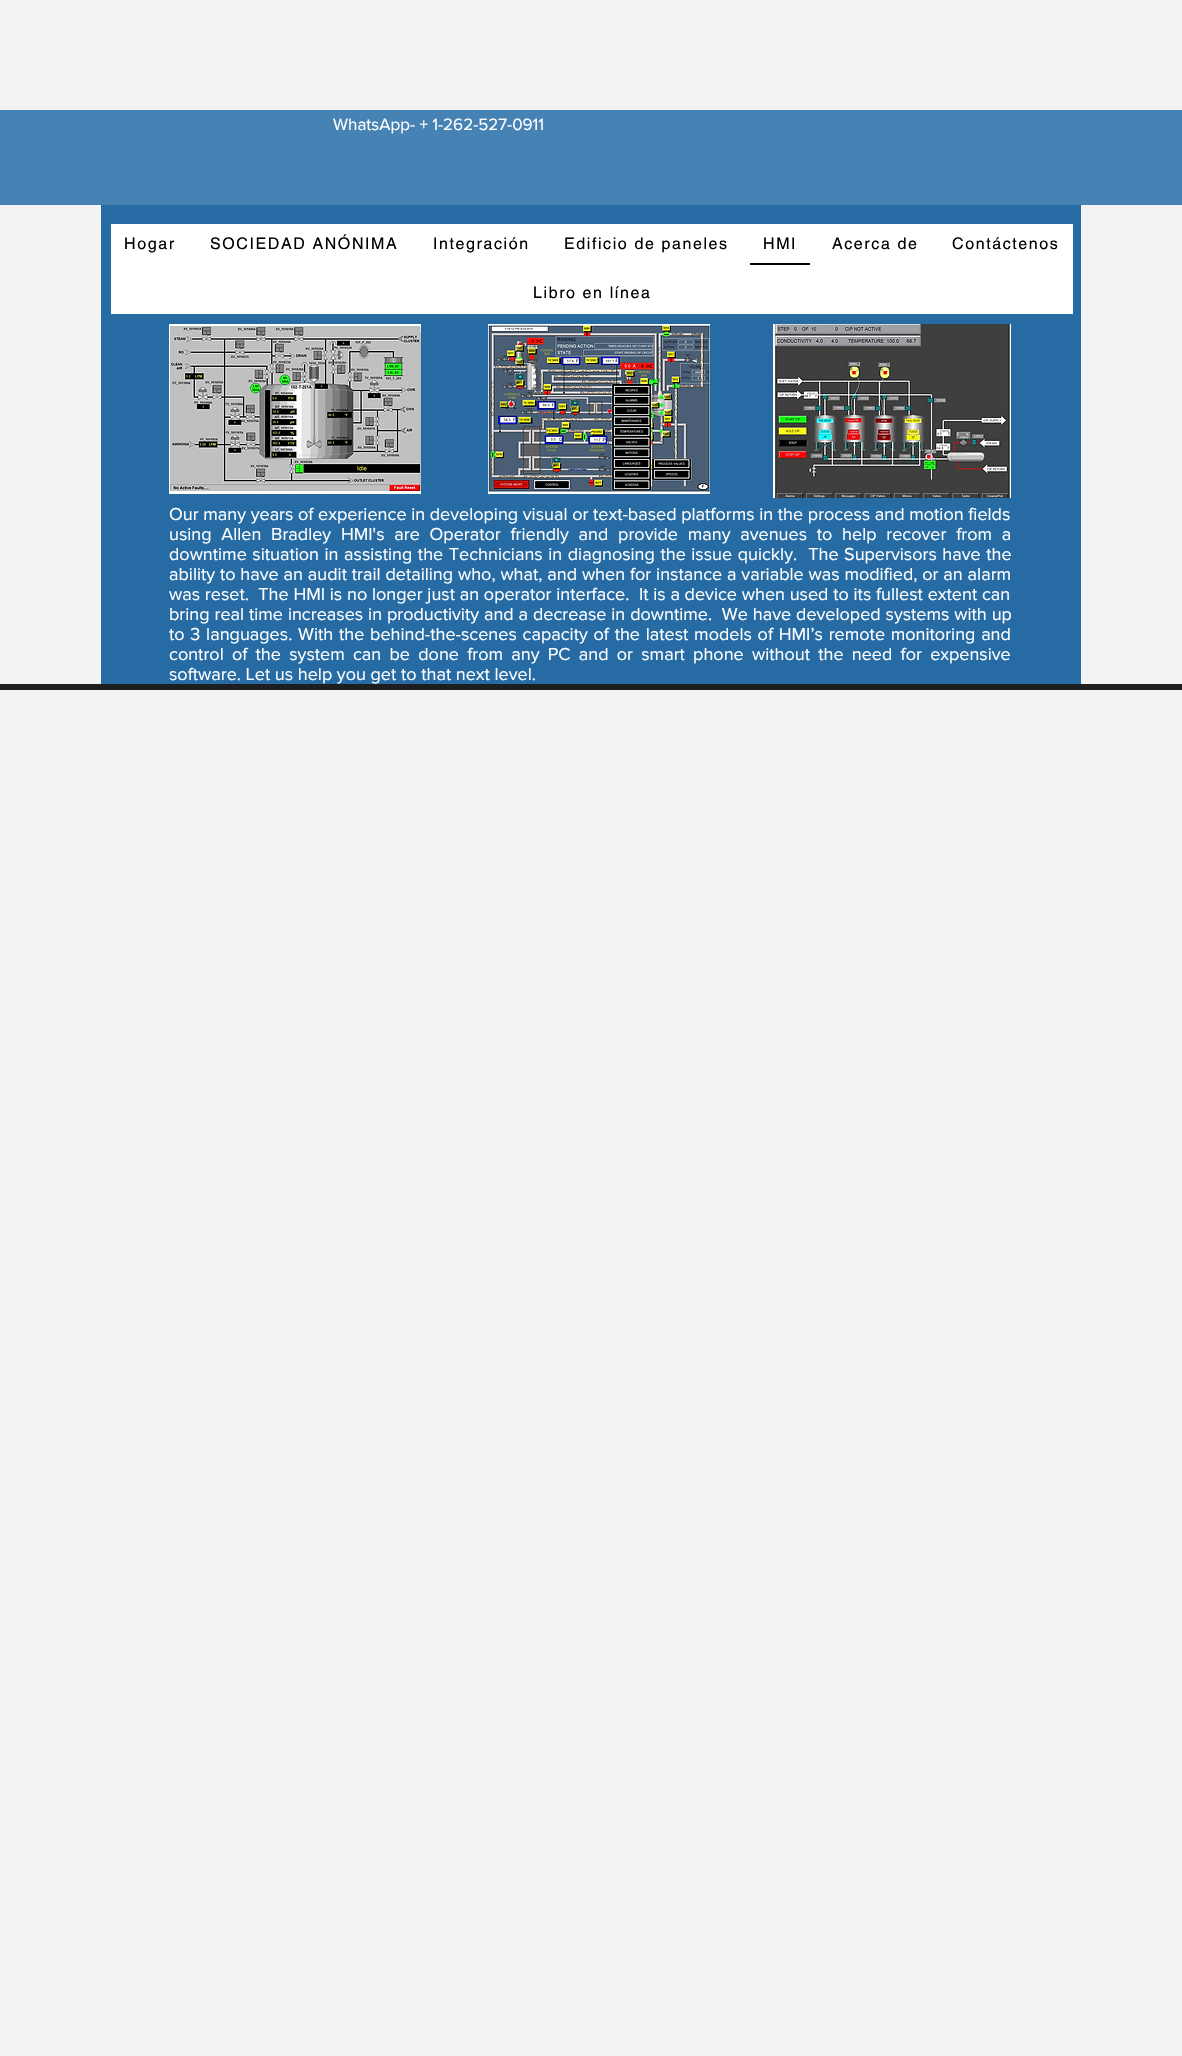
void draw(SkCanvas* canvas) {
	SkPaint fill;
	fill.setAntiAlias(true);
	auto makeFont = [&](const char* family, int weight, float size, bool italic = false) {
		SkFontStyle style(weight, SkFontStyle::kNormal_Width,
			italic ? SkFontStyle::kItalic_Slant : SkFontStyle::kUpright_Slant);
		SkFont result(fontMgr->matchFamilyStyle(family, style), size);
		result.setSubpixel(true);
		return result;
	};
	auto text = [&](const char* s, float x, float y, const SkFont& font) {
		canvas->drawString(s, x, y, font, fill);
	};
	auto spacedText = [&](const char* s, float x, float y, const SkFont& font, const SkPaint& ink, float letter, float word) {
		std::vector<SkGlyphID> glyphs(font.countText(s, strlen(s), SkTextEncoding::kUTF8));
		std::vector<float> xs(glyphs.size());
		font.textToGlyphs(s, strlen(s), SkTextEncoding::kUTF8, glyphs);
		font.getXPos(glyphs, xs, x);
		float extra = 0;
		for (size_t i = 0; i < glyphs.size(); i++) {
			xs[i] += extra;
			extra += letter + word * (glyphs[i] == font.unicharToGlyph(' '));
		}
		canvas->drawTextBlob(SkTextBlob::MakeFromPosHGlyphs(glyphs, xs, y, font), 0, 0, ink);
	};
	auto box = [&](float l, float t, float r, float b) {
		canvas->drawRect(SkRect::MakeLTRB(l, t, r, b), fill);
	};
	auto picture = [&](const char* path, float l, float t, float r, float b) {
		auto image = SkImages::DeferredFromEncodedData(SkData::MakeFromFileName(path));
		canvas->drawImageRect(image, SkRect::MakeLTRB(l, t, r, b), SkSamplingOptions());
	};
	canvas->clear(0xFFF3F3F3);
	fill.setColor(0xFF4682B4);
	box(0, 110, 1182, 205);
	fill.setColor(0xFF1E1E1E);
	box(0, 684, 1182, 690);
	fill.setColor(0xFF276BA5);
	box(101, 205, 1081, 684);
	fill.setColor(0xFFFFFFFF);
	box(111, 224, 1073, 314);
	fill.setColor(0xFF000000);
	box(750, 263, 810, 265);
	picture("image0.png", 169, 324, 421, 494);
	picture("image1.png", 488, 324, 710, 494);
	picture("image2.png", 773, 324, 1011, 498);
	auto font1 = makeFont("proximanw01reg", 400, 17);
	fill.setColor(0xFFFFFFFF);
	text("WhatsApp- + 1-262-527-0911", 333, 130, font1);
	auto font2 = makeFont("helvetica", 400, 16);
	fill.setColor(0xFF000000);
	spacedText("Hogar", 124, 249, font2, fill, 1.6f, 0);
	spacedText("SOCIEDAD ANÓNIMA", 210, 249, font2, fill, 1.6f, 0);
	spacedText("Integración", 433, 249, font2, fill, 1.6f, 0);
	spacedText("Edificio de paneles", 564, 249, font2, fill, 1.6f, 0);
	spacedText("HMI", 763, 249, font2, fill, 1.6f, 0);
	spacedText("Acerca de", 832, 249, font2, fill, 1.6f, 0);
	spacedText("Contáctenos", 952, 249, font2, fill, 1.6f, 0);
	spacedText("Libro en línea", 533, 298, font2, fill, 1.6f, 0);
	auto font3 = makeFont("proximanw01reg", 400, 18);
	fill.setColor(0xFFFFFFFF);
	text("Our many years of experience in developing visual or text-based platforms in the process and motion fields", 169, 520, font3);
	spacedText("using Allen Bradley HMI's are Operator friendly and provide many avenues to help recover from a", 169, 540, font3, fill, 0, 5.1f);
	spacedText("downtime situation in assisting the Technicians in diagnosing the issue quickly.  The Supervisors have the", 169, 560, font3, fill, 0, 0.9f);
	spacedText("ability to have an audit trail detailing who, what, and when for instance a variable was modified, or an alarm", 169, 580, font3, fill, 0, 0.2f);
	spacedText("was reset.  The HMI is no longer just an operator interface.  It is a device when used to its fullest extent can", 169, 600, font3, fill, 0, 0.1f);
	spacedText("bring real time increases in productivity and a decrease in downtime.  We have developed systems with up", 169, 620, font3, fill, 0, 0.25f);
	spacedText("to 3 languages. With the behind-the-scenes capacity of the latest models of HMI’s remote monitoring and", 169, 640, font3, fill, 0, 1.1f);
	spacedText("control of the system can be done from any PC and or smart phone without the need for expensive", 169, 660, font3, fill, 0, 3.6f);
	text("software. Let us help you get to that next level.", 169, 680, font3);
}
